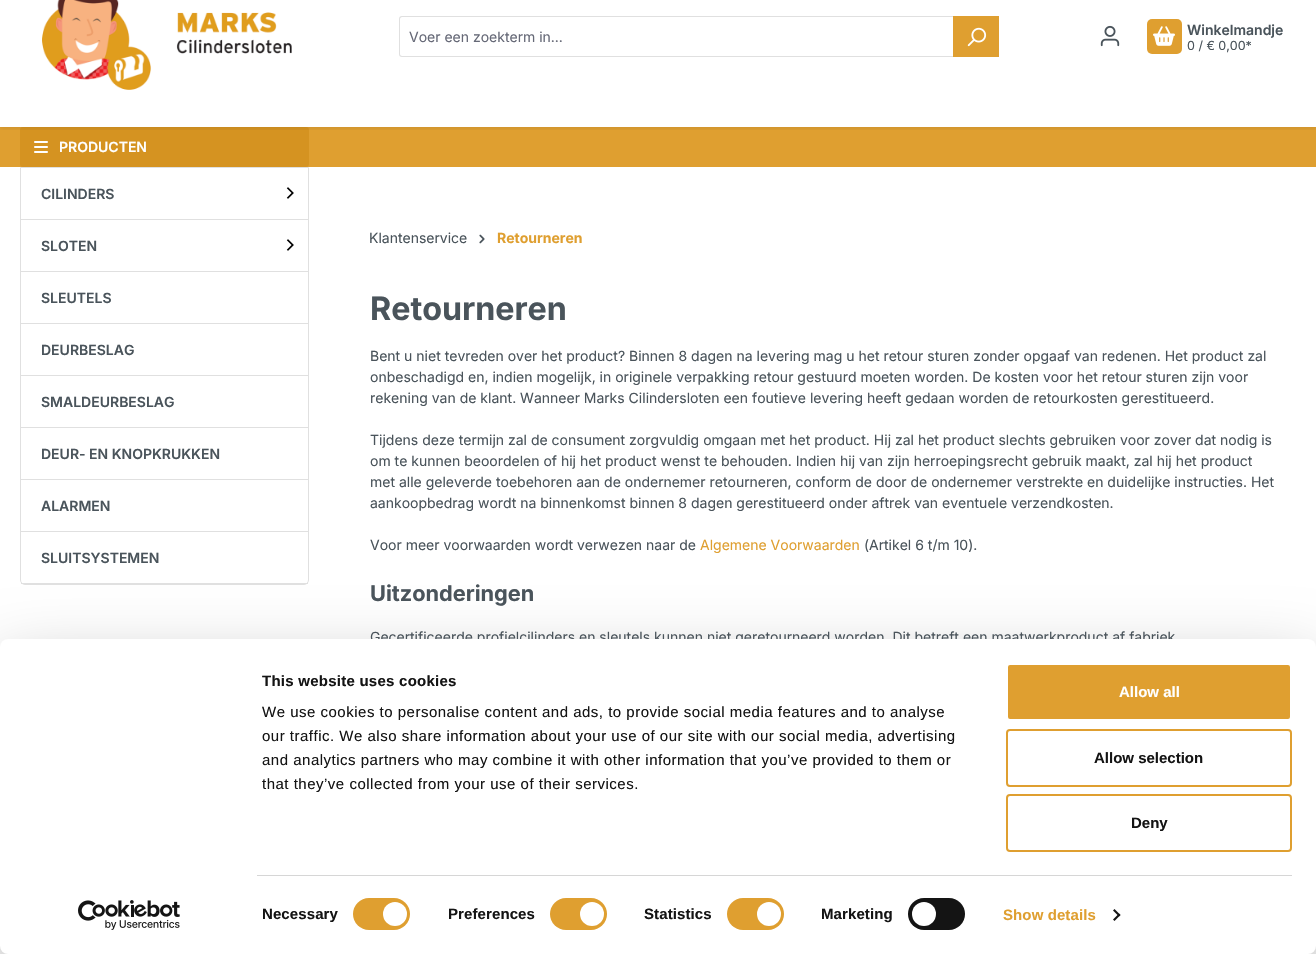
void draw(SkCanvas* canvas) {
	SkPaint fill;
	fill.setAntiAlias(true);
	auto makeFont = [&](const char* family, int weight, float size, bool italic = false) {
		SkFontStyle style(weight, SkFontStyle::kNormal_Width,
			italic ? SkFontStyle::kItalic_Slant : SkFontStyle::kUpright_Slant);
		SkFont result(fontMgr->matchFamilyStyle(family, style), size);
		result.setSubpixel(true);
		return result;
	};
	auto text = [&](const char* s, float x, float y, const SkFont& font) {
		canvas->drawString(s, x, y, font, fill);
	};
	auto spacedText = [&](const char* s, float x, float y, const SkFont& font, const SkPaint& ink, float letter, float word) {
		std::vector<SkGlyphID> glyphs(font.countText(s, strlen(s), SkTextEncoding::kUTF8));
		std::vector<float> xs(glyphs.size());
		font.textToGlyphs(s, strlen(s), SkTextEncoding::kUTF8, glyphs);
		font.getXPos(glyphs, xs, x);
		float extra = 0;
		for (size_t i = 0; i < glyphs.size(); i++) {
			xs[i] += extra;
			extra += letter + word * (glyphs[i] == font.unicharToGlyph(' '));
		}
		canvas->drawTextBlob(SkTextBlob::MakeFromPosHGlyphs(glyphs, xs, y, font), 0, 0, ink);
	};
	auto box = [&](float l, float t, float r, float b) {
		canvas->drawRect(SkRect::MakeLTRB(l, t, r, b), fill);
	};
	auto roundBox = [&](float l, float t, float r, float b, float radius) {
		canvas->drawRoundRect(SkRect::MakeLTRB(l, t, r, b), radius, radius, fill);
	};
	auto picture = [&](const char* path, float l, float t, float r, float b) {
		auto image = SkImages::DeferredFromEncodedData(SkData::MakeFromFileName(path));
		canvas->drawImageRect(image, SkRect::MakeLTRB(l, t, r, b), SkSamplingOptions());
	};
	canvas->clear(0xFFFFFFFF);
	fill.setColor(0xFFDF9F30);
	box(0, 127, 1316, 167);
	fill.setColor(0xFFD59321);
	roundBox(20, 127, 309, 167, 3);
	canvas->save();
	canvas->clipRect(SkRect::MakeLTRB(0, 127, 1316, 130));
	fill.setColor(0x12000000);
	fill.setMaskFilter(SkMaskFilter::MakeBlur(kNormal_SkBlurStyle, 2));
	canvas->drawRect(SkRect::MakeLTRB(0, -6, 1316, 129), fill);
	fill.setMaskFilter(nullptr);
	canvas->restore();
	picture("image0.png", 42, 0, 292, 90);
	fill.setColor(0xFFE0E0E0);
	canvas->drawPath(SkPathBuilder(SkPathFillType::kEvenOdd).moveTo(402, 16).lineTo(954, 16).lineTo(954, 57).lineTo(402, 57).cubicTo(400, 57, 399, 56, 399, 54).lineTo(399, 19).cubicTo(399, 17, 400, 16, 402, 16).close().moveTo(402, 17).lineTo(954, 17).lineTo(954, 56).lineTo(402, 56).cubicTo(401, 56, 400, 55, 400, 54).lineTo(400, 19).cubicTo(400, 18, 401, 17, 402, 17).close().detach(), fill);
	fill.setColor(0xFFDF9F30);
	box(953, 16, 999, 57);
	picture("image1.png", 967, 27, 987, 47);
	picture("image2.png", 1100, 25, 1120, 47);
	roundBox(1147, 19, 1182, 54, 5);
	picture("image3.png", 1153, 26, 1175, 46);
	picture("image4.png", 34, 141, 48, 153);
	fill.setStyle(SkPaint::kStroke_Style);
	fill.setStrokeWidth(1);
	fill.setColor(0xFFE0E0E0);
	canvas->drawPath(SkPathBuilder().moveTo(20.5f, 167.5f).lineTo(308.5f, 167.5f).lineTo(308.5f, 580).cubicTo(308.5f, 582.5f, 306.5f, 584.5f, 304, 584.5f).lineTo(25, 584.5f).cubicTo(22.5f, 584.5f, 20.5f, 582.5f, 20.5f, 580).close().detach(), fill);
	fill.setStyle(SkPaint::kFill_Style);
	box(21, 219, 308, 220);
	picture("image5.png", 286, 187, 294, 199);
	box(21, 271, 308, 272);
	picture("image5.png", 286, 239, 294, 251);
	box(21, 323, 308, 324);
	box(21, 375, 308, 376);
	box(21, 427, 308, 428);
	box(21, 479, 308, 480);
	box(21, 531, 308, 532);
	box(21, 583, 308, 584);
	picture("image6.png", 479, 234, 485, 244);
	fill.setColor(0x4D000000);
	fill.setMaskFilter(SkMaskFilter::MakeBlur(kNormal_SkBlurStyle, 35));
	canvas->drawRoundRect(SkRect::MakeLTRB(0, 669, 1316, 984), 8, 8, fill);
	fill.setMaskFilter(nullptr);
	auto font1 = makeFont("Inter", 400, 14);
	fill.setColor(0xFF666977);
	text("Voer een zoekterm in...", 409, 42, font1);
	auto font2 = makeFont("Inter", 600, 14);
	fill.setColor(0xFF4A545B);
	text("Winkelmandje", 1187, 35, font2);
	auto font3 = makeFont("Inter", 400, 12.5f);
	text("0 / € 0,00*", 1187, 50, font3);
	fill.setColor(0xFFFFFFFF);
	text("PRODUCTEN", 59, 152, font2);
	fill.setColor(0xFF4A545B);
	text("CILINDERS", 41, 199, font2);
	text("SLOTEN", 41, 251, font2);
	text("SLEUTELS", 41, 303, font2);
	text("DEURBESLAG", 41, 355, font2);
	text("SMALDEURBESLAG", 41, 407, font2);
	text("DEUR- EN KNOPKRUKKEN", 41, 459, font2);
	text("ALARMEN", 41, 511, font2);
	text("SLUITSYSTEMEN", 41, 563, font2);
	text("Klantenservice", 369, 243, font1);
	auto font4 = makeFont("Inter", 700, 14);
	fill.setColor(0xFFDF9F30);
	text("Retourneren", 497, 243, font4);
	auto font5 = makeFont("Inter", 700, 32.25f);
	fill.setColor(0xFF4A545B);
	text("Retourneren", 370, 320, font5);
	text("Bent u niet tevreden over het product? Binnen 8 dagen na levering mag u het retour sturen zonder opgaaf van redenen. Het product zal", 370, 361, font1);
	text("onbeschadigd en, indien mogelijk, in originele verpakking retour gestuurd moeten worden. De kosten voor het retour sturen zijn voor", 370, 382, font1);
	text("rekening van de klant. Wanneer Marks Cilindersloten een foutieve levering heeft gedaan worden de retourkosten gerestitueerd.", 370, 403, font1);
	text("Tijdens deze termijn zal de consument zorgvuldig omgaan met het product. Hij zal het product slechts gebruiken voor zover dat nodig is", 370, 445, font1);
	text("om te kunnen beoordelen of hij het product wenst te behouden. Indien hij van zijn herroepingsrecht gebruik maakt, zal hij het product", 370, 466, font1);
	text("met alle geleverde toebehoren aan de ondernemer retourneren, conform de door de ondernemer verstrekte en duidelijke instructies. Het", 370, 487, font1);
	text("aankoopbedrag wordt na binnenkomst binnen 8 dagen gerestitueerd onder aftrek van eventuele verzendkosten.", 370, 508, font1);
	text("Voor meer voorwaarden wordt verwezen naar de", 370, 550, font1);
	fill.setColor(0xFFDF9F30);
	text("Algemene Voorwaarden", 700, 550, font1);
	fill.setColor(0xFF4A545B);
	text("(Artikel 6 t/m 10).", 864, 550, font1);
	auto font6 = makeFont("Inter", 700, 21.75f);
	text("Uitzonderingen", 370, 601, font6);
	text("Gecertificeerde profielcilinders en sleutels kunnen niet geretourneerd worden. Dit betreft een maatwerkproduct af fabriek", 370, 642, font1);
	fill.setColor(0xFFFFFFFF);
	roundBox(0, 639, 1316, 954, 8);
	auto font7 = makeFont("Liberation Sans", 700, 15);
	fill.setColor(0xFF141414);
	spacedText("This website uses cookies", 262, 686, font7, fill, 0.25f, 0);
	auto font8 = makeFont("Liberation Sans", 400, 15);
	spacedText("We use cookies to personalise content and ads, to provide social media features and to analyse", 262, 717, font8, fill, 0.5f, 0);
	spacedText("our traffic. We also share information about your use of our site with our social media, advertising", 262, 741, font8, fill, 0.5f, 0);
	spacedText("and analytics partners who may combine it with other information that you’ve provided to them or", 262, 765, font8, fill, 0.5f, 0);
	spacedText("that they’ve collected from your use of their services.", 262, 789, font8, fill, 0.5f, 0);
	fill.setColor(0xFFD6D6D6);
	box(257, 875, 1292, 876);
	fill.setColor(0xFF141414);
	spacedText("Necessary", 262, 919, font7, fill, 0.1f, 0);
	fill.setColor(0xFFDF9F30);
	roundBox(353, 898, 410, 930, 16);
	fill.setColor(0xFFFFFFFF);
	canvas->drawCircle(395, 914, 12, fill);
	fill.setColor(0xFF141414);
	spacedText("Preferences", 448, 919, font7, fill, 0.1f, 0);
	fill.setColor(0xFFDF9F30);
	roundBox(550, 898, 607, 930, 16);
	fill.setColor(0xFFFFFFFF);
	canvas->drawCircle(592, 914, 12, fill);
	fill.setColor(0xFF141414);
	spacedText("Statistics", 644, 919, font7, fill, 0.1f, 0);
	fill.setColor(0xFFDF9F30);
	roundBox(727, 898, 784, 930, 16);
	fill.setColor(0xFFFFFFFF);
	canvas->drawCircle(769, 914, 12, fill);
	fill.setColor(0xFF141414);
	spacedText("Marketing", 821, 919, font7, fill, 0.1f, 0);
	roundBox(908, 898, 965, 930, 16);
	fill.setColor(0xFFFFFFFF);
	canvas->drawCircle(924, 914, 12, fill);
	fill.setColor(0xFFDF9F30);
	spacedText("Show details", 1003, 920, font7, fill, 0.1f, 0);
	fill.setColor(0xFF141414);
	canvas->drawPath(SkPathBuilder().moveTo(1114.5f, 909).lineTo(1120.5f, 915).lineTo(1119, 916.5f).lineTo(1113, 910.5f).close().detach(), fill);
	canvas->drawPath(SkPathBuilder().moveTo(1119, 913.5f).lineTo(1120.5f, 915).lineTo(1114.5f, 921).lineTo(1113, 919.5f).close().detach(), fill);
	fill.setColor(0xFFDF9F30);
	canvas->drawRoundRect(SkRect::MakeLTRB(1007, 664, 1291, 720), 3, 3, fill);
	fill.setStyle(SkPaint::kStroke_Style);
	fill.setStrokeWidth(2);
	fill.setColor(0xFFFFFFFF);
	canvas->drawRoundRect(SkRect::MakeLTRB(1007, 664, 1291, 720), 3, 3, fill);
	fill.setStyle(SkPaint::kFill_Style);
	text("Allow all", 1119, 697, font7);
	fill.setStyle(SkPaint::kStroke_Style);
	fill.setColor(0xFFDF9F30);
	canvas->drawRoundRect(SkRect::MakeLTRB(1007, 730, 1291, 786), 3, 3, fill);
	fill.setStyle(SkPaint::kFill_Style);
	fill.setColor(0xFF141414);
	text("Allow selection", 1094, 763, font7);
	fill.setStyle(SkPaint::kStroke_Style);
	fill.setColor(0xFFDF9F30);
	canvas->drawRoundRect(SkRect::MakeLTRB(1007, 795, 1291, 851), 3, 3, fill);
	fill.setStyle(SkPaint::kFill_Style);
	fill.setColor(0xFF141414);
	text("Deny", 1131, 828, font7);
	picture("image7.png", 78, 900, 180, 930);
}
